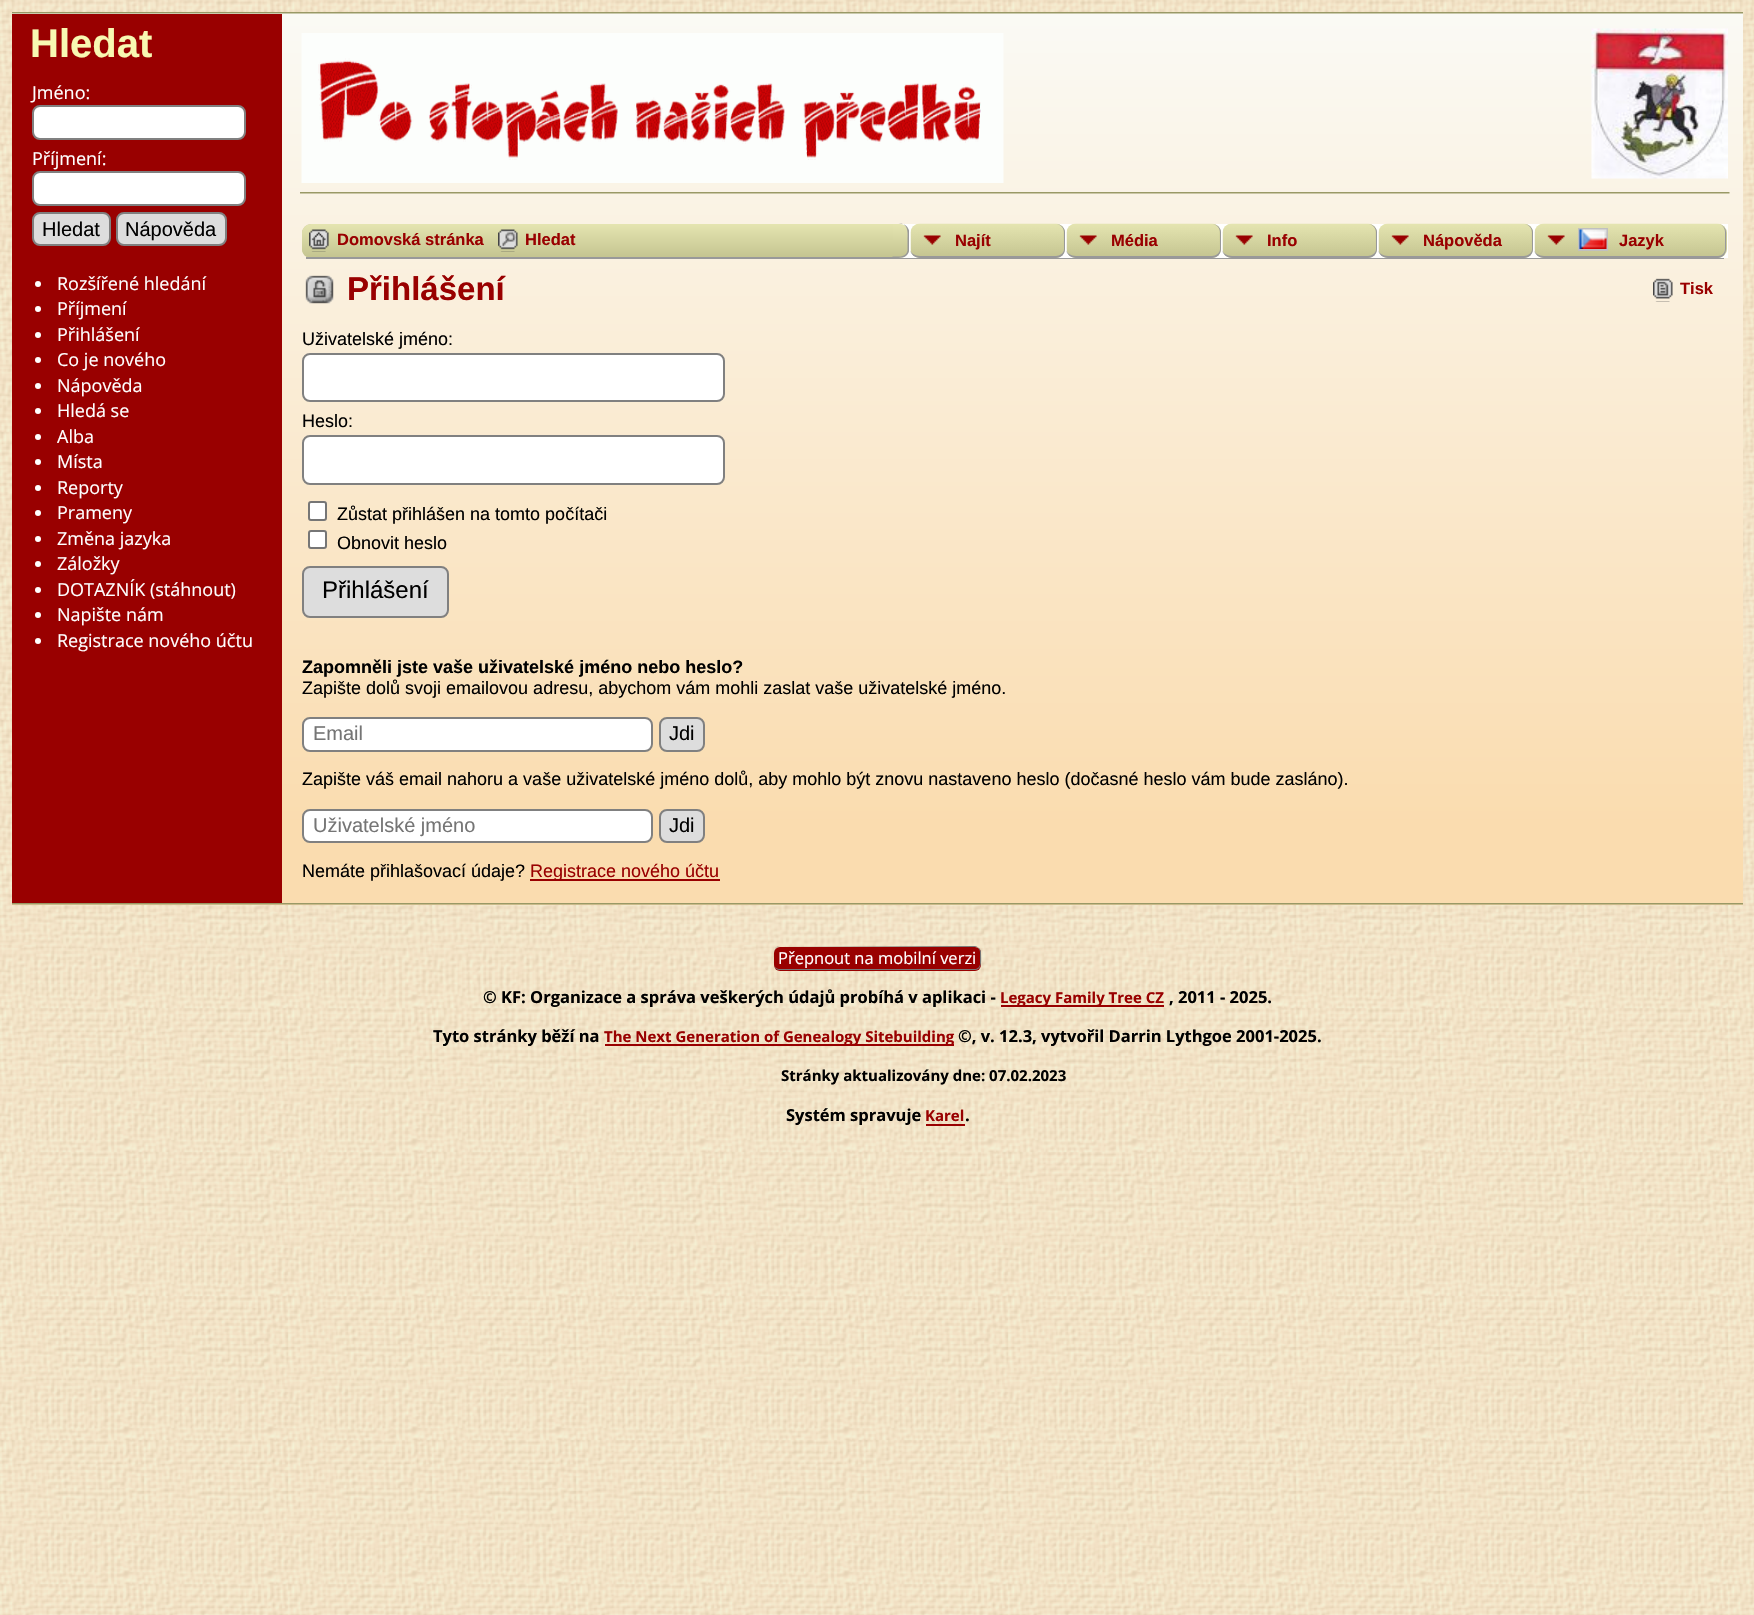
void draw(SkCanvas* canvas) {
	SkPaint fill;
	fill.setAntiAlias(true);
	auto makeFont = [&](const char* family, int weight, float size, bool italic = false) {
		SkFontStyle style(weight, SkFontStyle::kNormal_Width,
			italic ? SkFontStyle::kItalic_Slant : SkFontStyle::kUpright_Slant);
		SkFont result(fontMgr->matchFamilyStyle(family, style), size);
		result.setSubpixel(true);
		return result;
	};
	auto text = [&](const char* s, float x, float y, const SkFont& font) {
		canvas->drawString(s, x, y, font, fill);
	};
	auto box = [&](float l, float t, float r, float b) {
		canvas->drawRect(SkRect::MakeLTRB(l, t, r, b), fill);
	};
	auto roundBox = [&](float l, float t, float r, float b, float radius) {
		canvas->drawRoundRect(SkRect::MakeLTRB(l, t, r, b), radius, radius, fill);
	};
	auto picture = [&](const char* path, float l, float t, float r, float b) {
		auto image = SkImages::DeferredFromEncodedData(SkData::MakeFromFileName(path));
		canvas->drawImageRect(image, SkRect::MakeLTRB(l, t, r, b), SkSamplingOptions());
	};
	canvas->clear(0xFFFFFFFF);
	picture("image0.png", 0, 0, 1754, 1615);
	{
		const SkColor colors[] = {0xFFFAFAF5, 0xFFFADCAF};
		const float stops[] = {0, 0.91f};
		const SkPoint ends[] = {{878, 12}, {878, 905}};
		fill.setShader(SkGradientShader::MakeLinear(ends, colors, stops, 2, SkTileMode::kClamp));
		fill.setAlpha(255);
	}
	box(12, 13, 1743, 905);
	picture("image1.png", 12, 12, 1743, 14);
	fill.setShader(nullptr);
	fill.setColor(0xFF990000);
	box(12, 14, 282, 903);
	fill.setColor(0xFFFFFFFF);
	canvas->drawRoundRect(SkRect::MakeLTRB(33, 106, 245, 139), 7, 7, fill);
	fill.setStyle(SkPaint::kStroke_Style);
	fill.setStrokeWidth(2);
	fill.setColor(0xFF808080);
	canvas->drawRoundRect(SkRect::MakeLTRB(33, 106, 245, 139), 7, 7, fill);
	fill.setStyle(SkPaint::kFill_Style);
	fill.setColor(0xFFFFFFFF);
	canvas->drawRoundRect(SkRect::MakeLTRB(33, 172, 245, 205), 7, 7, fill);
	fill.setStyle(SkPaint::kStroke_Style);
	fill.setColor(0xFF808080);
	canvas->drawRoundRect(SkRect::MakeLTRB(33, 172, 245, 205), 7, 7, fill);
	fill.setStyle(SkPaint::kFill_Style);
	fill.setColor(0xFFDDDDDD);
	canvas->drawRoundRect(SkRect::MakeLTRB(33, 213, 110, 245), 7, 7, fill);
	fill.setStyle(SkPaint::kStroke_Style);
	fill.setColor(0xFF808080);
	canvas->drawRoundRect(SkRect::MakeLTRB(33, 213, 110, 245), 7, 7, fill);
	fill.setStyle(SkPaint::kFill_Style);
	fill.setColor(0xFFDDDDDD);
	canvas->drawRoundRect(SkRect::MakeLTRB(117, 213, 226, 245), 7, 7, fill);
	fill.setStyle(SkPaint::kStroke_Style);
	fill.setColor(0xFF808080);
	canvas->drawRoundRect(SkRect::MakeLTRB(117, 213, 226, 245), 7, 7, fill);
	fill.setStyle(SkPaint::kFill_Style);
	fill.setColor(0xFFFFFFFF);
	canvas->drawCircle(38, 284, 3, fill);
	canvas->drawCircle(38, 309, 3, fill);
	canvas->drawCircle(38, 335, 3, fill);
	canvas->drawCircle(38, 360, 3, fill);
	canvas->drawCircle(38, 386, 3, fill);
	canvas->drawCircle(38, 411, 3, fill);
	canvas->drawCircle(38, 437, 3, fill);
	canvas->drawCircle(38, 462, 3, fill);
	canvas->drawCircle(38, 488, 3, fill);
	canvas->drawCircle(38, 513, 3, fill);
	canvas->drawCircle(38, 539, 3, fill);
	canvas->drawCircle(38, 564, 3, fill);
	canvas->drawCircle(38, 590, 3, fill);
	canvas->drawCircle(38, 615, 3, fill);
	canvas->drawCircle(38, 641, 3, fill);
	picture("image2.png", 301, 33, 1004, 183);
	picture("image3.png", 1591, 28, 1728, 179);
	picture("image4.png", 300, 192, 1730, 194);
	fill.setColor(0xFFCCCC99);
	roundBox(302, 224, 1728, 258, 9);
	canvas->save();
	canvas->clipPath(SkPathBuilder().moveTo(311, 224).lineTo(1719, 224).cubicTo(1724, 224, 1728, 228, 1728, 233).lineTo(1728, 249).cubicTo(1728, 254, 1724, 258, 1719, 258).lineTo(311, 258).cubicTo(306, 258, 302, 254, 302, 249).lineTo(302, 233).cubicTo(302, 228, 306, 224, 311, 224).close().detach(), true);
	{
		const SkColor colors[] = {0xFFE5E5B1, 0xFFC5C591};
		const float stops[] = {0, 1};
		const SkPoint ends[] = {{1015, 223}, {1015, 257}};
		fill.setShader(SkGradientShader::MakeLinear(ends, colors, stops, 2, SkTileMode::kClamp));
		fill.setAlpha(255);
	}
	canvas->drawPath(SkPathBuilder().moveTo(311, 224).lineTo(1719, 224).cubicTo(1724, 224, 1728, 228, 1728, 233).lineTo(1728, 257).lineTo(302, 257).lineTo(302, 233).cubicTo(302, 228, 306, 224, 311, 224).close().detach(), fill);
	canvas->restore();
	fill.setShader(nullptr);
	fill.setColor(0xFF999999);
	box(306, 257, 1724, 259);
	picture("image5.png", 309, 229, 329, 252);
	picture("image6.png", 498, 229, 518, 252);
	fill.setColor(0xFFFFFFFF);
	box(900, 224, 1728, 258);
	canvas->save();
	canvas->clipPath(SkPathBuilder().moveTo(893, 224).lineTo(900, 224).cubicTo(905, 224, 909, 228, 909, 233).lineTo(909, 249).cubicTo(909, 254, 905, 258, 900, 258).lineTo(893, 258).close().detach(), true);
	{
		const SkColor colors[] = {0xFFE5E5B1, 0xFFC5C591};
		const float stops[] = {0, 1};
		const SkPoint ends[] = {{900, 224}, {900, 257}};
		fill.setShader(SkGradientShader::MakeLinear(ends, colors, stops, 2, SkTileMode::kClamp));
		fill.setAlpha(255);
	}
	box(893, 224, 909, 257);
	{
		const SkColor colors[] = {0xFFE5E5B1, 0xFFC5C591};
		const float stops[] = {0, 1};
		const SkPoint ends[] = {{900, 257}, {900, 290}};
		fill.setShader(SkGradientShader::MakeLinear(ends, colors, stops, 2, SkTileMode::kClamp));
		fill.setAlpha(255);
	}
	box(893, 257, 909, 258);
	canvas->restore();
	fill.setShader(nullptr);
	fill.setColor(0xFF999999);
	canvas->drawPath(SkPathBuilder(SkPathFillType::kEvenOdd).moveTo(892.5f, 223.5f).cubicTo(899, 223.5f, 907, 222.5f, 909, 230.5f).lineTo(909, 251).cubicTo(907, 259, 899, 258, 892.5f, 258).close().moveTo(892.5f, 223.5f).lineTo(901.5f, 223.5f).cubicTo(909, 225.5f, 907.5f, 235, 907.5f, 241).lineTo(907.5f, 250.5f).cubicTo(906, 258, 898, 256.5f, 892.5f, 256.5f).close().detach(), fill);
	fill.setColor(0xFFCCCC99);
	roundBox(911, 224, 1065, 258, 9);
	picture("image7.png", 910, 223, 1064, 257);
	fill.setColor(0xFF999999);
	canvas->drawPath(SkPathBuilder(SkPathFillType::kEvenOdd).moveTo(920, 224).lineTo(1056, 224).cubicTo(1061, 224, 1065, 228, 1065, 232).lineTo(1065, 249).cubicTo(1065, 254, 1061, 258, 1056, 258).lineTo(920, 258).cubicTo(915, 258, 910, 254, 910, 249).lineTo(910, 232).cubicTo(910, 228, 915, 224, 920, 224).close().moveTo(920, 224).lineTo(1056, 224).cubicTo(1060, 224, 1064, 228, 1064, 232).lineTo(1064, 249).cubicTo(1064, 253, 1060, 256, 1056, 256).lineTo(920, 256).cubicTo(915, 256, 910, 253, 910, 249).lineTo(910, 232).cubicTo(910, 228, 915, 224, 920, 224).close().detach(), fill);
	fill.setColor(0xFFCCCC99);
	roundBox(1067, 224, 1221, 258, 9);
	picture("image8.png", 1066, 223, 1220, 257);
	fill.setColor(0xFF999999);
	canvas->drawPath(SkPathBuilder(SkPathFillType::kEvenOdd).moveTo(1076, 224).lineTo(1212, 224).cubicTo(1217, 224, 1221, 228, 1221, 232).lineTo(1221, 249).cubicTo(1221, 254, 1217, 258, 1212, 258).lineTo(1076, 258).cubicTo(1071, 258, 1066, 254, 1066, 249).lineTo(1066, 232).cubicTo(1066, 228, 1071, 224, 1076, 224).close().moveTo(1076, 224).lineTo(1212, 224).cubicTo(1216, 224, 1220, 228, 1220, 232).lineTo(1220, 249).cubicTo(1220, 253, 1216, 256, 1212, 256).lineTo(1076, 256).cubicTo(1071, 256, 1066, 253, 1066, 249).lineTo(1066, 232).cubicTo(1066, 228, 1071, 224, 1076, 224).close().detach(), fill);
	fill.setColor(0xFFCCCC99);
	roundBox(1223, 224, 1377, 258, 9);
	picture("image8.png", 1222, 223, 1376, 257);
	fill.setColor(0xFF999999);
	canvas->drawPath(SkPathBuilder(SkPathFillType::kEvenOdd).moveTo(1232, 224).lineTo(1368, 224).cubicTo(1373, 224, 1377, 228, 1377, 232).lineTo(1377, 249).cubicTo(1377, 254, 1373, 258, 1368, 258).lineTo(1232, 258).cubicTo(1227, 258, 1222, 254, 1222, 249).lineTo(1222, 232).cubicTo(1222, 228, 1227, 224, 1232, 224).close().moveTo(1232, 224).lineTo(1368, 224).cubicTo(1372, 224, 1376, 228, 1376, 232).lineTo(1376, 249).cubicTo(1376, 253, 1372, 256, 1368, 256).lineTo(1232, 256).cubicTo(1227, 256, 1222, 253, 1222, 249).lineTo(1222, 232).cubicTo(1222, 228, 1227, 224, 1232, 224).close().detach(), fill);
	fill.setColor(0xFFCCCC99);
	roundBox(1379, 224, 1533, 258, 9);
	picture("image9.png", 1378, 223, 1532, 257);
	fill.setColor(0xFF999999);
	canvas->drawPath(SkPathBuilder(SkPathFillType::kEvenOdd).moveTo(1388, 224).lineTo(1524, 224).cubicTo(1529, 224, 1533, 228, 1533, 232).lineTo(1533, 249).cubicTo(1533, 254, 1529, 258, 1524, 258).lineTo(1388, 258).cubicTo(1383, 258, 1378, 254, 1378, 249).lineTo(1378, 232).cubicTo(1378, 228, 1383, 224, 1388, 224).close().moveTo(1388, 224).lineTo(1524, 224).cubicTo(1528, 224, 1532, 228, 1532, 232).lineTo(1532, 249).cubicTo(1532, 253, 1528, 256, 1524, 256).lineTo(1388, 256).cubicTo(1383, 256, 1378, 253, 1378, 249).lineTo(1378, 232).cubicTo(1378, 228, 1383, 224, 1388, 224).close().detach(), fill);
	fill.setColor(0xFFCCCC99);
	roundBox(1535, 224, 1727, 258, 9);
	picture("image10.png", 1534, 223, 1725, 257);
	fill.setColor(0xFF999999);
	canvas->drawPath(SkPathBuilder(SkPathFillType::kEvenOdd).moveTo(1544, 224).lineTo(1718, 224).cubicTo(1722, 224, 1726, 228, 1726, 232).lineTo(1726, 249).cubicTo(1726, 254, 1722, 258, 1718, 258).lineTo(1544, 258).cubicTo(1539, 258, 1534, 254, 1534, 249).lineTo(1534, 232).cubicTo(1534, 228, 1539, 224, 1544, 224).close().moveTo(1544, 224).lineTo(1718, 224).cubicTo(1722, 224, 1725, 228, 1725, 232).lineTo(1725, 249).cubicTo(1725, 253, 1722, 256, 1718, 256).lineTo(1544, 256).cubicTo(1539, 256, 1534, 253, 1534, 249).lineTo(1534, 232).cubicTo(1534, 228, 1539, 224, 1544, 224).close().detach(), fill);
	fill.setStyle(SkPaint::kStroke_Style);
	fill.setColor(0xFFC0C0C0);
	canvas->drawRect(SkRect::MakeLTRB(1579, 229, 1607, 250), fill);
	picture("image11.png", 1579, 229, 1607, 249);
	picture("image12.png", 305, 275, 334, 304);
	picture("image13.png", 1653, 278, 1673, 302);
	fill.setStyle(SkPaint::kFill_Style);
	fill.setColor(0xFFFFFFFF);
	canvas->drawRoundRect(SkRect::MakeLTRB(303, 354, 724, 401), 7, 7, fill);
	fill.setStyle(SkPaint::kStroke_Style);
	fill.setColor(0xFF808080);
	canvas->drawRoundRect(SkRect::MakeLTRB(303, 354, 724, 401), 7, 7, fill);
	fill.setStyle(SkPaint::kFill_Style);
	fill.setColor(0xFFFFFFFF);
	canvas->drawRoundRect(SkRect::MakeLTRB(303, 436, 724, 484), 7, 7, fill);
	fill.setStyle(SkPaint::kStroke_Style);
	fill.setColor(0xFF808080);
	canvas->drawRoundRect(SkRect::MakeLTRB(303, 436, 724, 484), 7, 7, fill);
	fill.setStyle(SkPaint::kFill_Style);
	fill.setColor(0xFFFFFFFF);
	canvas->drawRoundRect(SkRect::MakeLTRB(309, 502, 326, 520), 2, 2, fill);
	fill.setStyle(SkPaint::kStroke_Style);
	fill.setColor(0xFF767676);
	canvas->drawRoundRect(SkRect::MakeLTRB(309, 502, 326, 520), 2, 2, fill);
	fill.setStyle(SkPaint::kFill_Style);
	fill.setColor(0xFFFFFFFF);
	canvas->drawRoundRect(SkRect::MakeLTRB(309, 531, 326, 548), 2, 2, fill);
	fill.setStyle(SkPaint::kStroke_Style);
	fill.setColor(0xFF767676);
	canvas->drawRoundRect(SkRect::MakeLTRB(309, 531, 326, 548), 2, 2, fill);
	fill.setStyle(SkPaint::kFill_Style);
	fill.setColor(0xFFDDDDDD);
	canvas->drawRoundRect(SkRect::MakeLTRB(303, 567, 448, 617), 7, 7, fill);
	fill.setStyle(SkPaint::kStroke_Style);
	fill.setColor(0xFF808080);
	canvas->drawRoundRect(SkRect::MakeLTRB(303, 567, 448, 617), 7, 7, fill);
	fill.setStyle(SkPaint::kFill_Style);
	fill.setColor(0xFFFFFFFF);
	canvas->drawRoundRect(SkRect::MakeLTRB(303, 718, 652, 751), 7, 7, fill);
	fill.setStyle(SkPaint::kStroke_Style);
	fill.setColor(0xFF808080);
	canvas->drawRoundRect(SkRect::MakeLTRB(303, 718, 652, 751), 7, 7, fill);
	fill.setStyle(SkPaint::kFill_Style);
	fill.setColor(0xFFDDDDDD);
	canvas->drawRoundRect(SkRect::MakeLTRB(660, 718, 704, 751), 7, 7, fill);
	fill.setStyle(SkPaint::kStroke_Style);
	fill.setColor(0xFF808080);
	canvas->drawRoundRect(SkRect::MakeLTRB(660, 718, 704, 751), 7, 7, fill);
	fill.setStyle(SkPaint::kFill_Style);
	fill.setColor(0xFFFFFFFF);
	canvas->drawRoundRect(SkRect::MakeLTRB(303, 810, 652, 842), 7, 7, fill);
	fill.setStyle(SkPaint::kStroke_Style);
	fill.setColor(0xFF808080);
	canvas->drawRoundRect(SkRect::MakeLTRB(303, 810, 652, 842), 7, 7, fill);
	fill.setStyle(SkPaint::kFill_Style);
	fill.setColor(0xFFDDDDDD);
	canvas->drawRoundRect(SkRect::MakeLTRB(660, 810, 704, 842), 7, 7, fill);
	fill.setStyle(SkPaint::kStroke_Style);
	fill.setColor(0xFF808080);
	canvas->drawRoundRect(SkRect::MakeLTRB(660, 810, 704, 842), 7, 7, fill);
	fill.setStyle(SkPaint::kFill_Style);
	fill.setColor(0xFF990000);
	box(530, 879, 720, 881);
	picture("image14.png", 12, 903, 1743, 905);
	roundBox(774, 947, 981, 971, 6);
	fill.setColor(0xFF777777);
	canvas->drawPath(SkPathBuilder(SkPathFillType::kEvenOdd).moveTo(780, 946).lineTo(976, 947).cubicTo(979, 947, 981, 950, 981, 952).cubicTo(981, 958, 983, 970, 975, 970).lineTo(779, 970).cubicTo(773, 969, 774, 963, 774, 958).cubicTo(774, 954, 773, 946, 780, 946).close().moveTo(780, 946).lineTo(975, 946).cubicTo(977, 946, 980, 949, 980, 952).lineTo(980, 964).cubicTo(980, 967, 977, 969, 975, 969).lineTo(780, 969).cubicTo(777, 969, 774, 967, 774, 964).lineTo(774, 952).cubicTo(774, 949, 777, 946, 780, 946).close().detach(), fill);
	fill.setColor(0xFF990000);
	box(1001, 1005, 1164, 1007);
	box(605, 1044, 954, 1046);
	box(926, 1124, 965, 1126);
	auto font1 = makeFont("Liberation Sans", 700, 40);
	fill.setColor(0xFFF8F8B2);
	text("Hledat", 30, 57, font1);
	auto font2 = makeFont("Open Sans", 400, 18);
	fill.setColor(0xFFFFFFFF);
	text("Jméno:", 32, 99, font2);
	text("Příjmení:", 32, 165, font2);
	auto font3 = makeFont("Liberation Sans", 400, 20);
	fill.setColor(0xFF000000);
	text("Hledat", 42, 236, font3);
	text("Nápověda", 125, 236, font3);
	fill.setColor(0xFFFFFFFF);
	text("Rozšířené hledání", 57, 290, font2);
	text("Příjmení", 57, 315, font2);
	text("Přihlášení", 57, 341, font2);
	text("Co je nového", 57, 366, font2);
	text("Nápověda", 57, 392, font2);
	text("Hledá se", 57, 417, font2);
	text("Alba", 57, 443, font2);
	text("Místa", 57, 468, font2);
	text("Reporty", 57, 494, font2);
	text("Prameny", 57, 519, font2);
	text("Změna jazyka", 57, 545, font2);
	text("Záložky", 57, 570, font2);
	text("DOTAZNÍK (stáhnout)", 57, 596, font2);
	text("Napište nám", 57, 621, font2);
	text("Registrace nového účtu", 57, 647, font2);
	auto font4 = makeFont("Liberation Sans", 700, 16.5f);
	fill.setColor(0xFF990000);
	text("Domovská stránka", 337, 245, font4);
	text("Hledat", 525, 245, font4);
	text("Najít", 955, 246, font4);
	text("Média", 1111, 246, font4);
	text("Info", 1267, 246, font4);
	text("Nápověda", 1423, 246, font4);
	text("Jazyk", 1619, 246, font4);
	auto font5 = makeFont("Liberation Sans", 700, 33);
	text("Přihlášení", 347, 300, font5);
	text("Tisk", 1680, 294, font4);
	auto font6 = makeFont("Liberation Sans", 400, 18);
	fill.setColor(0xFF000000);
	text("Uživatelské jméno:", 302, 345, font6);
	text("Heslo:", 302, 427, font6);
	text("Zůstat přihlášen na tomto počítači", 337, 520, font6);
	text("Obnovit heslo", 337, 549, font6);
	auto font7 = makeFont("Liberation Sans", 400, 24);
	text("Přihlášení", 322, 598, font7);
	auto font8 = makeFont("Liberation Sans", 700, 18);
	text("Zapomněli jste vaše uživatelské jméno nebo heslo?", 302, 673, font8);
	text("Zapište dolů svoji emailovou adresu, abychom vám mohli zaslat vaše uživatelské jméno.", 302, 694, font6);
	fill.setColor(0xFF757575);
	text("Email", 313, 740, font3);
	fill.setColor(0xFF000000);
	text("Jdi", 669, 740, font3);
	text("Zapište váš email nahoru a vaše uživatelské jméno dolů, aby mohlo být znovu nastaveno heslo (dočasné heslo vám bude zasláno).", 302, 785, font6);
	fill.setColor(0xFF757575);
	text("Uživatelské jméno", 313, 832, font3);
	fill.setColor(0xFF000000);
	text("Jdi", 669, 832, font3);
	text("Nemáte přihlašovací údaje?", 302, 877, font6);
	fill.setColor(0xFF990000);
	text("Registrace nového účtu", 530, 877, font6);
	auto font9 = makeFont("Open Sans", 400, 16.5f);
	fill.setColor(0xFFFFFFFF);
	text("Přepnout na mobilní verzi", 778, 964, font9);
	auto font10 = makeFont("Open Sans", 700, 16.5f);
	fill.setColor(0xFF000000);
	text("© KF: Organizace a správa veškerých údajů probíhá v aplikaci -", 483, 1003, font10);
	auto font11 = makeFont("Open Sans", 700, 15);
	fill.setColor(0xFF990000);
	text("Legacy Family Tree CZ", 1000, 1003, font11);
	fill.setColor(0xFF000000);
	text(", 2011 - 2025.", 1169, 1003, font10);
	text("Tyto stránky běží na", 433, 1042, font10);
	fill.setColor(0xFF990000);
	text("The Next Generation of Genealogy Sitebuilding", 604, 1042, font11);
	fill.setColor(0xFF000000);
	text("©, v. 12.3, vytvořil Darrin Lythgoe 2001-2025.", 958, 1042, font10);
	text("Stránky aktualizovány dne: 07.02.2023", 781, 1081, font11);
	text("Systém spravuje", 786, 1121, font10);
	fill.setColor(0xFF990000);
	text("Karel", 925, 1121, font11);
	fill.setColor(0xFF000000);
	text(".", 965, 1121, font10);
}
